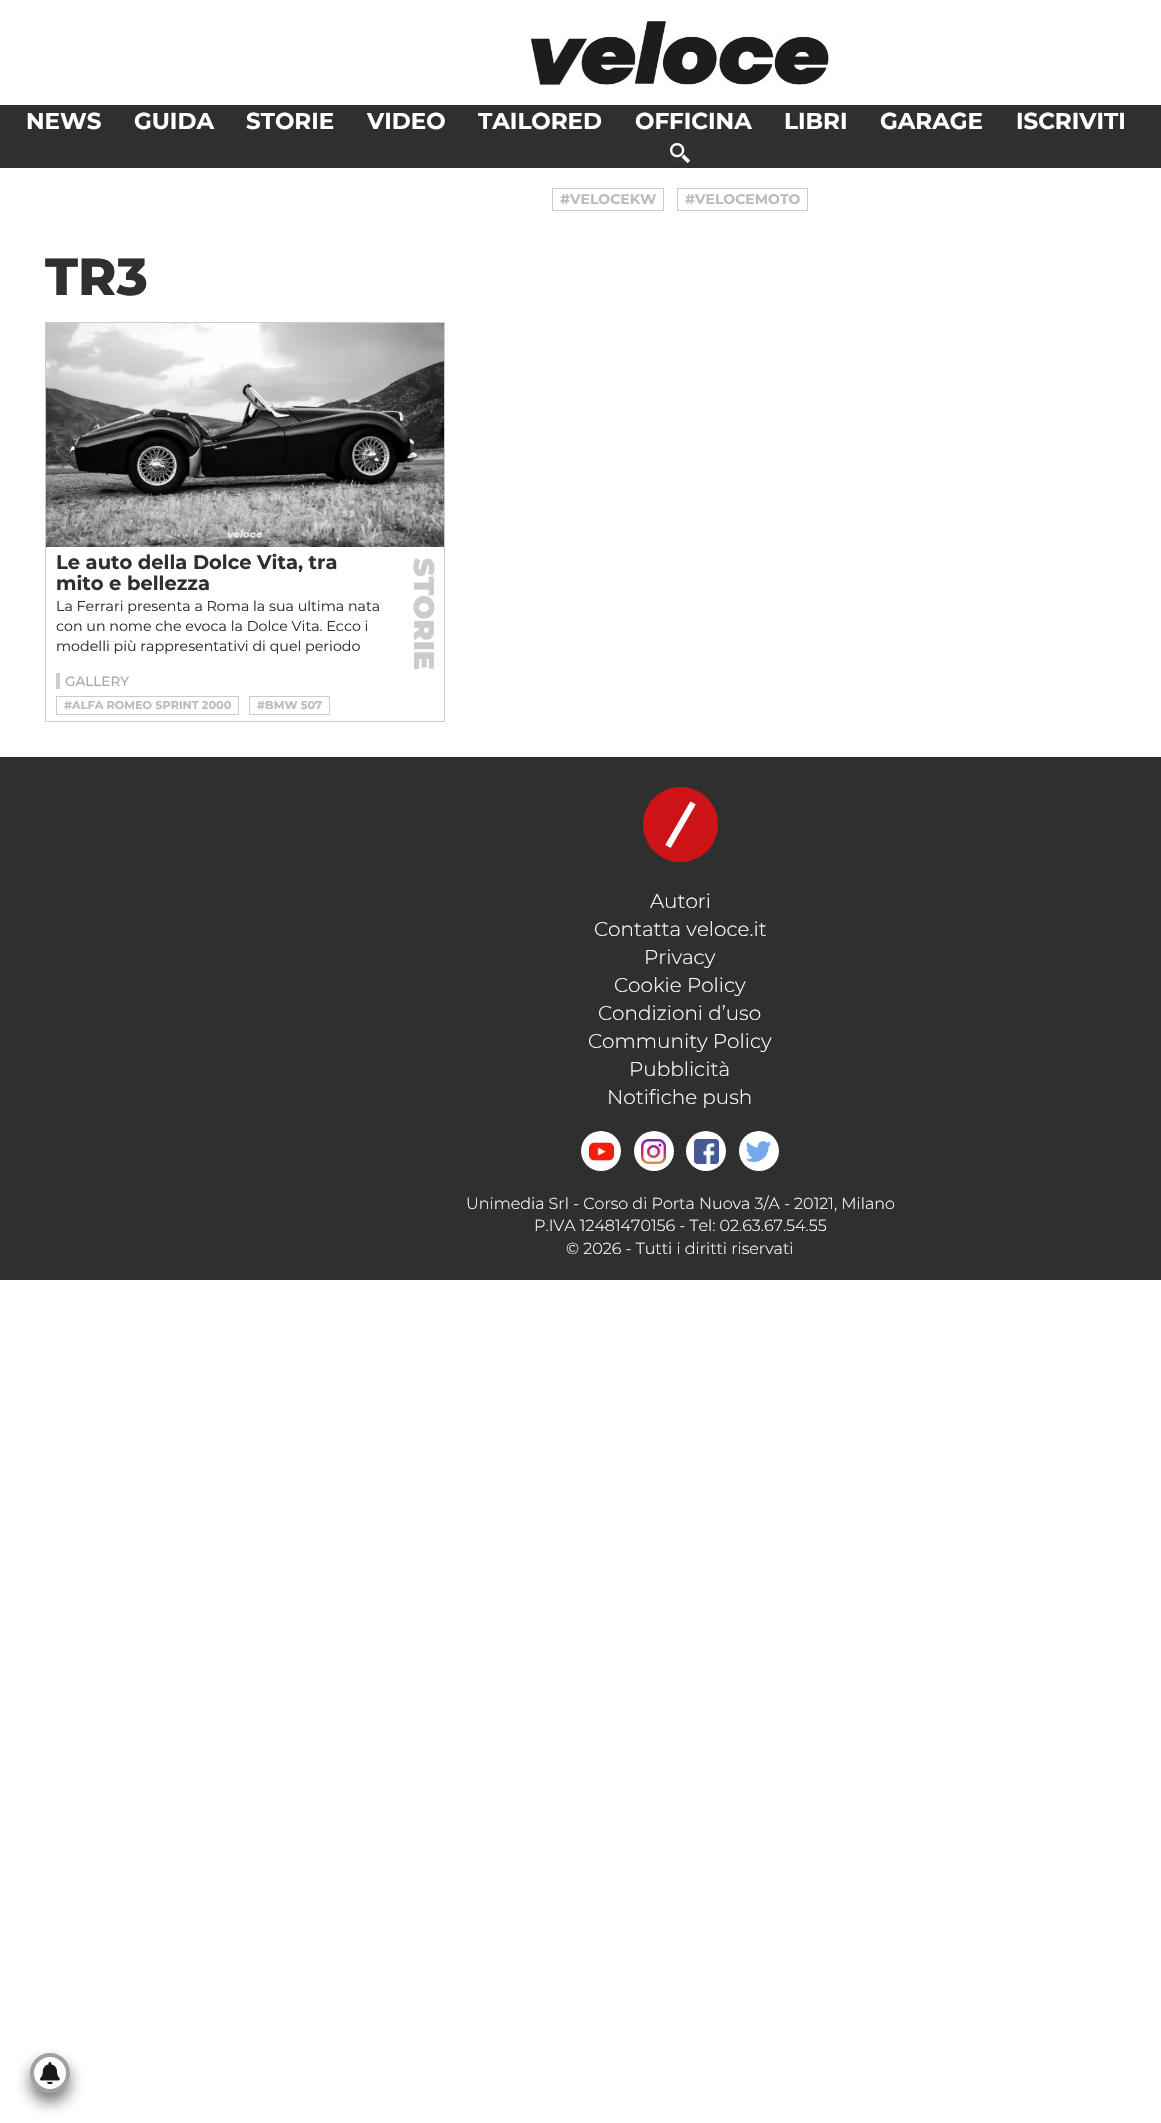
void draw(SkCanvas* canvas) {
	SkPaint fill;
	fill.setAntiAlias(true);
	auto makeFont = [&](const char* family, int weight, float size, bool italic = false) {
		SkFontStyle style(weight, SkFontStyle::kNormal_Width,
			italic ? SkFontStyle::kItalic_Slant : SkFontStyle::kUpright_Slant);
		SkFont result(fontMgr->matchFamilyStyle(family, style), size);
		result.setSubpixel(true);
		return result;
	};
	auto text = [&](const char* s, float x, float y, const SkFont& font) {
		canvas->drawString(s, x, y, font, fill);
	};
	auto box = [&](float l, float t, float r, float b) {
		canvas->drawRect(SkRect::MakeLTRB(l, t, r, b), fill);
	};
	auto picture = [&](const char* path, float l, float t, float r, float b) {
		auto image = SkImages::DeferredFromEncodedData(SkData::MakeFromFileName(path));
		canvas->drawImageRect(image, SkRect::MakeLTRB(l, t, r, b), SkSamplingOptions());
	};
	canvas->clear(0xFFFFFFFF);
	picture("image0.png", 530, 21, 830, 85);
	fill.setColor(0xFF2F2F2F);
	box(0, 105, 1161, 168);
	picture("image1.png", 670, 143, 690, 163);
	fill.setStyle(SkPaint::kStroke_Style);
	fill.setStrokeWidth(1);
	fill.setColor(0xFFCCCCCC);
	canvas->drawRect(SkRect::MakeLTRB(552.5f, 188.5f, 663.5f, 210.5f), fill);
	canvas->drawRect(SkRect::MakeLTRB(677.5f, 188.5f, 807.5f, 210.5f), fill);
	canvas->drawRect(SkRect::MakeLTRB(45.5f, 322.5f, 444.5f, 721.5f), fill);
	picture("image2.png", 46, 323, 444, 547);
	fill.setStyle(SkPaint::kFill_Style);
	box(56, 673, 60, 689);
	fill.setStyle(SkPaint::kStroke_Style);
	canvas->drawRect(SkRect::MakeLTRB(56.5f, 696.5f, 238.5f, 714.5f), fill);
	canvas->drawRect(SkRect::MakeLTRB(249.5f, 696.5f, 329.5f, 714.5f), fill);
	fill.setStyle(SkPaint::kFill_Style);
	fill.setColor(0xFF2F2F2F);
	box(0, 757, 1161, 1280);
	picture("image3.png", 643, 787, 718, 862);
	fill.setColor(0xFFFFFFFF);
	canvas->drawCircle(601, 1151, 20, fill);
	picture("image4.png", 589, 1142, 614, 1161);
	canvas->drawCircle(654, 1151, 20, fill);
	picture("image5.png", 641, 1139, 666, 1164);
	canvas->drawCircle(706, 1151, 20, fill);
	picture("image6.png", 694, 1139, 719, 1164);
	canvas->drawCircle(759, 1151, 20, fill);
	picture("image7.png", 746, 1140, 771, 1163);
	fill.setColor(0x991A1A1A);
	fill.setMaskFilter(SkMaskFilter::MakeBlur(kNormal_SkBlurStyle, 7.5f));
	canvas->drawRoundRect(SkRect::MakeLTRB(30, 2062, 70, 2102), 20, 20, fill);
	fill.setMaskFilter(nullptr);
	fill.setColor(0xFFFFFFFF);
	canvas->drawCircle(50, 2073, 18, fill);
	fill.setStyle(SkPaint::kStroke_Style);
	fill.setStrokeWidth(4);
	fill.setColor(0xFFA1A1A1);
	canvas->drawCircle(50, 2073, 18, fill);
	picture("image8.png", 40, 2062, 60, 2084);
	auto font1 = makeFont("Montserrat", 700, 23);
	fill.setStyle(SkPaint::kFill_Style);
	fill.setColor(0xFFFFFFFF);
	text("NEWS", 26, 129, font1);
	text("GUIDA", 134, 129, font1);
	text("STORIE", 246, 129, font1);
	text("VIDEO", 367, 129, font1);
	text("TAILORED", 478, 129, font1);
	text("OFFICINA", 635, 129, font1);
	text("LIBRI", 784, 129, font1);
	text("GARAGE", 880, 129, font1);
	text("ISCRIVITI", 1016, 129, font1);
	auto font2 = makeFont("Montserrat", 700, 14);
	fill.setColor(0xFFBBBBBB);
	text("#VELOCEKW", 560, 204, font2);
	text("#VELOCEMOTO", 685, 204, font2);
	auto font3 = makeFont("Montserrat", 800, 52);
	fill.setColor(0xFF2F2F2F);
	text("TR3", 45, 295, font3);
	auto font4 = makeFont("Montserrat", 700, 19.5f);
	text("Le auto della Dolce Vita, tra", 56, 569, font4);
	text("mito e bellezza", 56, 590, font4);
	auto font5 = makeFont("Montserrat", 400, 14.25f);
	text("La Ferrari presenta a Roma la sua ultima nata", 56, 611, font5);
	text("con un nome che evoca la Dolce Vita. Ecco i", 56, 631, font5);
	text("modelli più rappresentativi di quel periodo", 56, 651, font5);
	auto font6 = makeFont("Montserrat", 900, 28.5f);
	fill.setColor(0xFFCCCCCC);
	canvas->save();
	canvas->rotate(90, 414, 558);
	text("STORIE", 414, 558, font6);
	canvas->restore();
	auto font7 = makeFont("Montserrat", 500, 13.5f);
	fill.setColor(0xFFAAAAAA);
	text("GALLERY", 65, 686, font7);
	auto font8 = makeFont("Montserrat", 700, 11.25f);
	fill.setColor(0xFFBBBBBB);
	text("#ALFA ROMEO SPRINT 2000", 64, 709, font8);
	text("#BMW 507", 257, 709, font8);
	auto font9 = makeFont("Montserrat", 300, 20);
	fill.setColor(0xFFFFFFFF);
	text("Autori", 650, 908, font9);
	text("Contatta veloce.it", 594, 936, font9);
	text("Privacy", 644, 964, font9);
	text("Cookie Policy", 614, 992, font9);
	text("Condizioni d’uso", 598, 1020, font9);
	text("Community Policy", 588, 1048, font9);
	text("Pubblicità", 629, 1076, font9);
	text("Notifiche push", 607, 1104, font9);
	auto font10 = makeFont("Montserrat", 300, 16);
	text("Unimedia Srl - Corso di Porta Nuova 3/A - 20121, Milano", 466, 1209, font10);
	text("P.IVA 12481470156 - Tel: 02.63.67.54.55", 534, 1231, font10);
	text("© 2026 - Tutti i diritti riservati", 566, 1254, font10);
}
